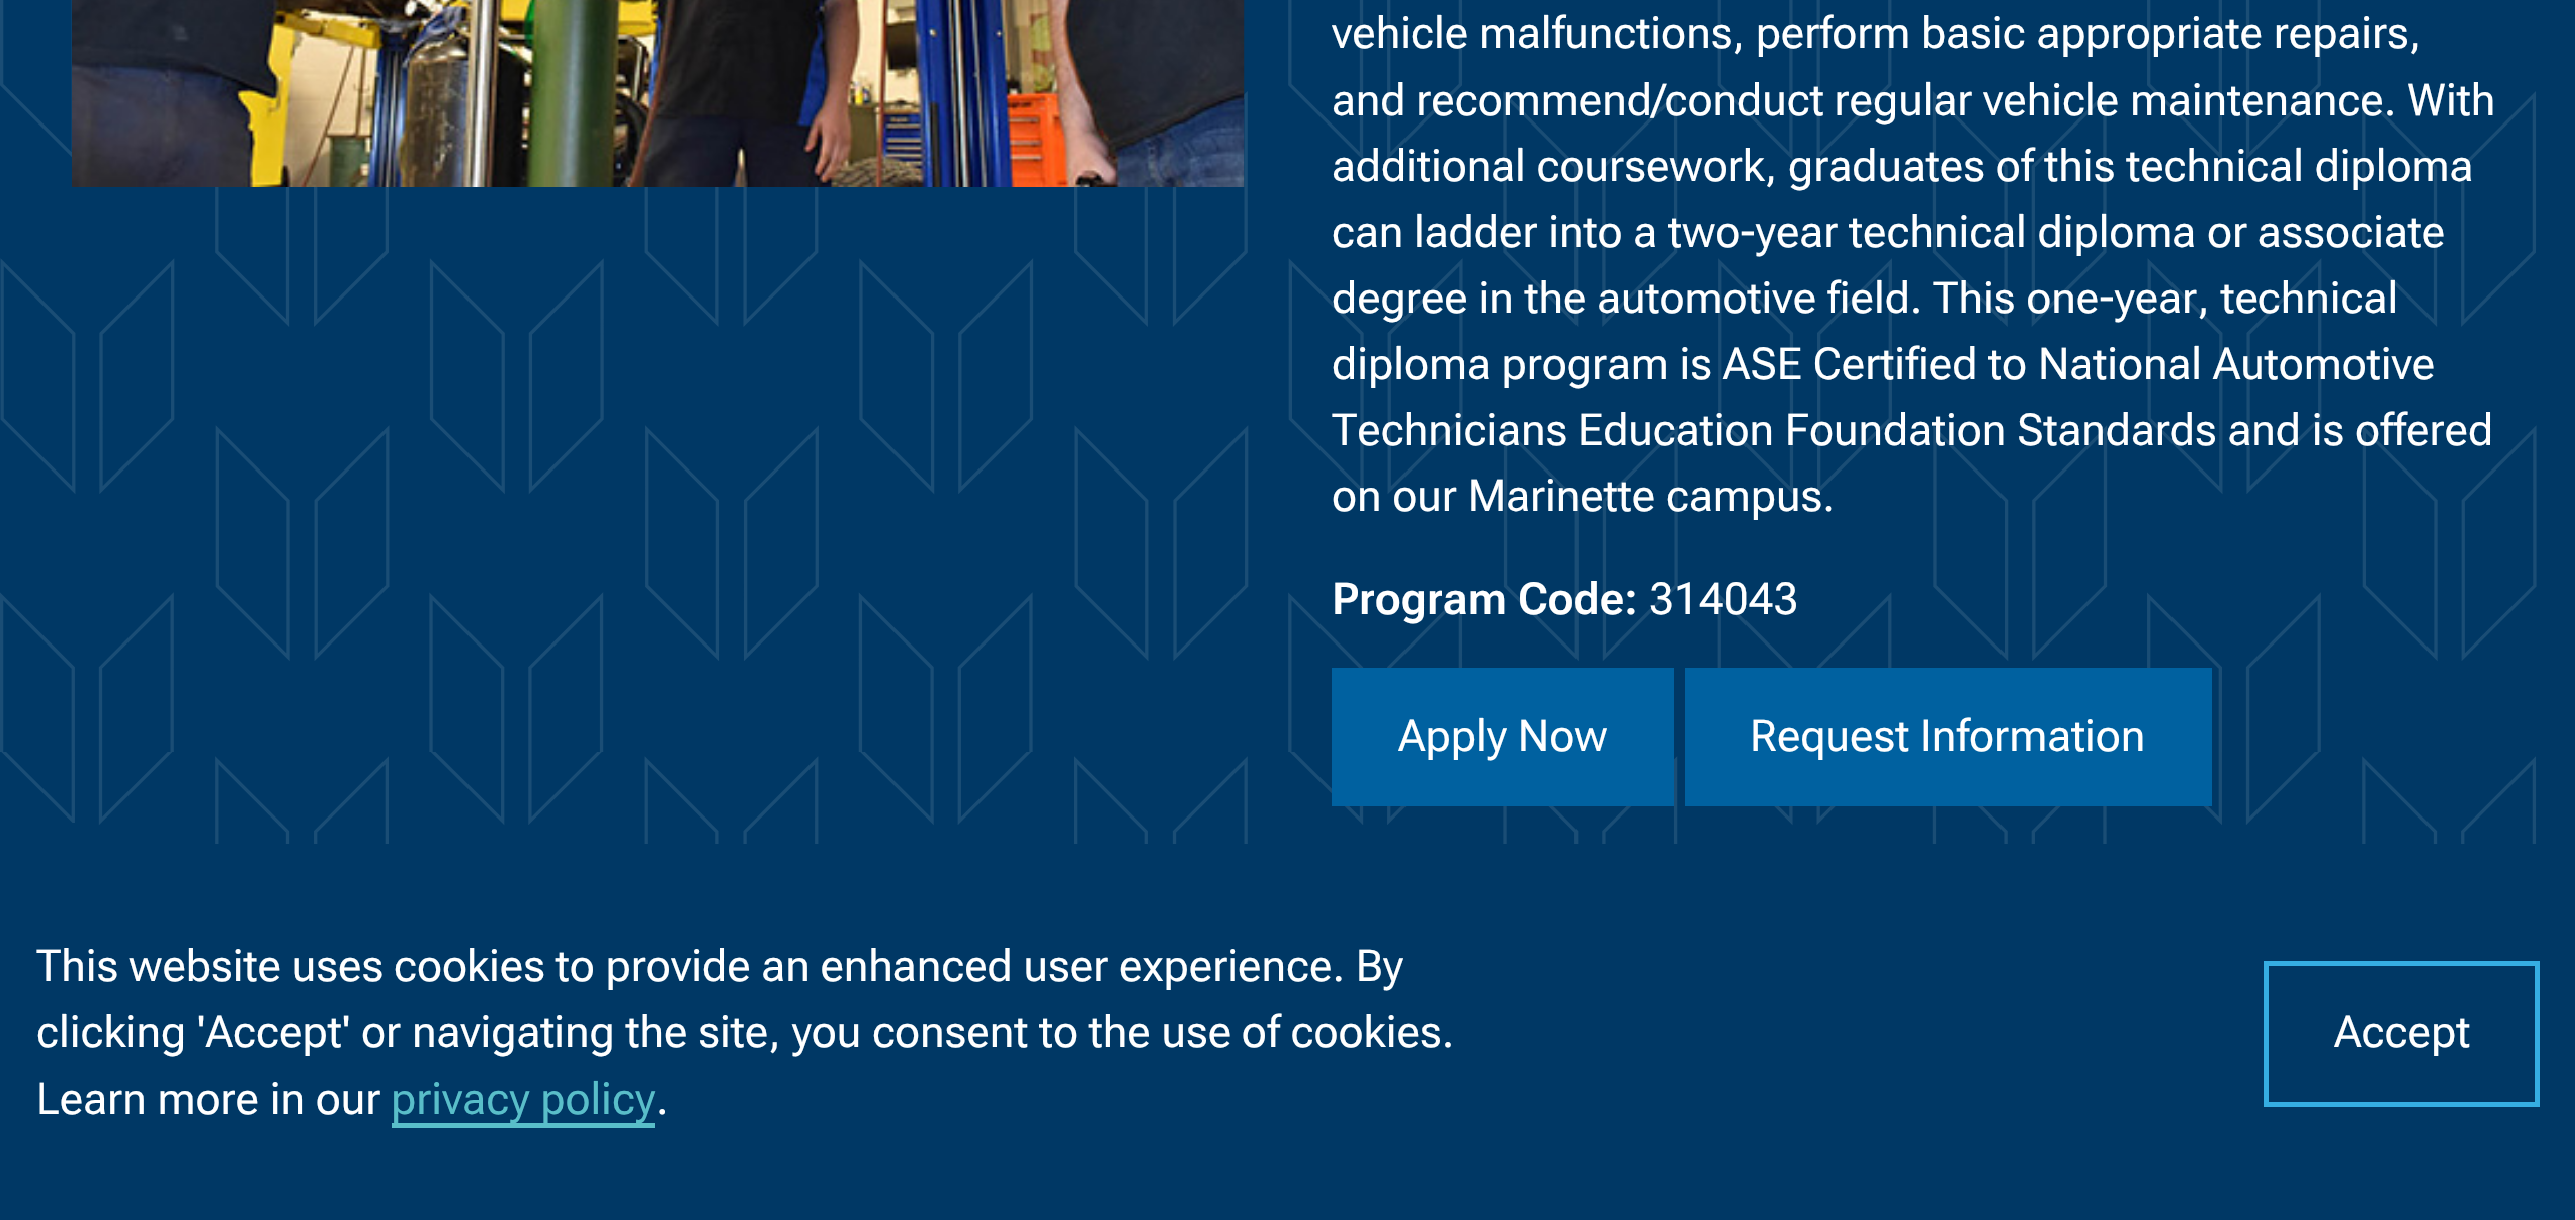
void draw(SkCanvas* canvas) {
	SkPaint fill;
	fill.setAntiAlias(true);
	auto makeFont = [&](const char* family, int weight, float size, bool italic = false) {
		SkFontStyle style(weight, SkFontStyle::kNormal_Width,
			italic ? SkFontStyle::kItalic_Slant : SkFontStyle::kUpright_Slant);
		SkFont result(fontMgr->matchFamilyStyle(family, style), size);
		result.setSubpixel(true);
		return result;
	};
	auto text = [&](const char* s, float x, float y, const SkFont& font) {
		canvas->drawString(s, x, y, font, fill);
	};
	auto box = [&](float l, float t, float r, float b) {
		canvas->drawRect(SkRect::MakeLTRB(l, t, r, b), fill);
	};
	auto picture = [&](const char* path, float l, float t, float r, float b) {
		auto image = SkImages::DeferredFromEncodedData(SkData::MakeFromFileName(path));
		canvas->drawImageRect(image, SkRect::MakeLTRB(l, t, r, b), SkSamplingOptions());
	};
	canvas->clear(0xFF003865);
	picture("image0.png", 0, 0, 2537, 844);
	picture("image1.png", 72, 0, 1245, 187);
	fill.setColor(0xFF0061A0);
	box(1332, 668, 1674, 806);
	box(1685, 668, 2212, 806);
	fill.setColor(0xFF59BEC9);
	box(392, 1123, 655, 1128);
	fill.setStyle(SkPaint::kStroke_Style);
	fill.setStrokeWidth(5);
	fill.setColor(0xFF35AEE3);
	canvas->drawRect(SkRect::MakeLTRB(2266.5f, 963.5f, 2537.5f, 1104.5f), fill);
	auto font1 = makeFont("Roboto Flex", 400, 44.1f);
	fill.setStyle(SkPaint::kFill_Style);
	fill.setColor(0xFFFFFFFF);
	text("vehicle malfunctions, perform basic appropriate repairs,", 1332, 48, font1);
	text("and recommend/conduct regular vehicle maintenance. With", 1332, 115, font1);
	text("additional coursework, graduates of this technical diploma", 1332, 181, font1);
	text("can ladder into a two-year technical diploma or associate", 1332, 247, font1);
	text("degree in the automotive field. This one-year, technical", 1332, 313, font1);
	text("diploma program is ASE Certified to National Automotive", 1332, 379, font1);
	text("Technicians Education Foundation Standards and is offered", 1332, 445, font1);
	text("on our Marinette campus.", 1332, 511, font1);
	auto font2 = makeFont("Roboto Flex", 600, 44.1f);
	text("Program Code:", 1332, 614, font2);
	text("314043", 1649, 614, font1);
	text("Apply Now", 1398, 751, font1);
	text("Request Information", 1750, 751, font1);
	text("This website uses cookies to provide an enhanced user experience. By", 36, 981, font1);
	text("clicking 'Accept' or navigating the site, you consent to the use of cookies.", 36, 1047, font1);
	text("Learn more in our", 36, 1114, font1);
	fill.setColor(0xFF59BEC9);
	text("privacy policy", 391, 1114, font1);
	fill.setColor(0xFFFFFFFF);
	text(".", 656, 1114, font1);
	text("Accept", 2334, 1047, font1);
}
